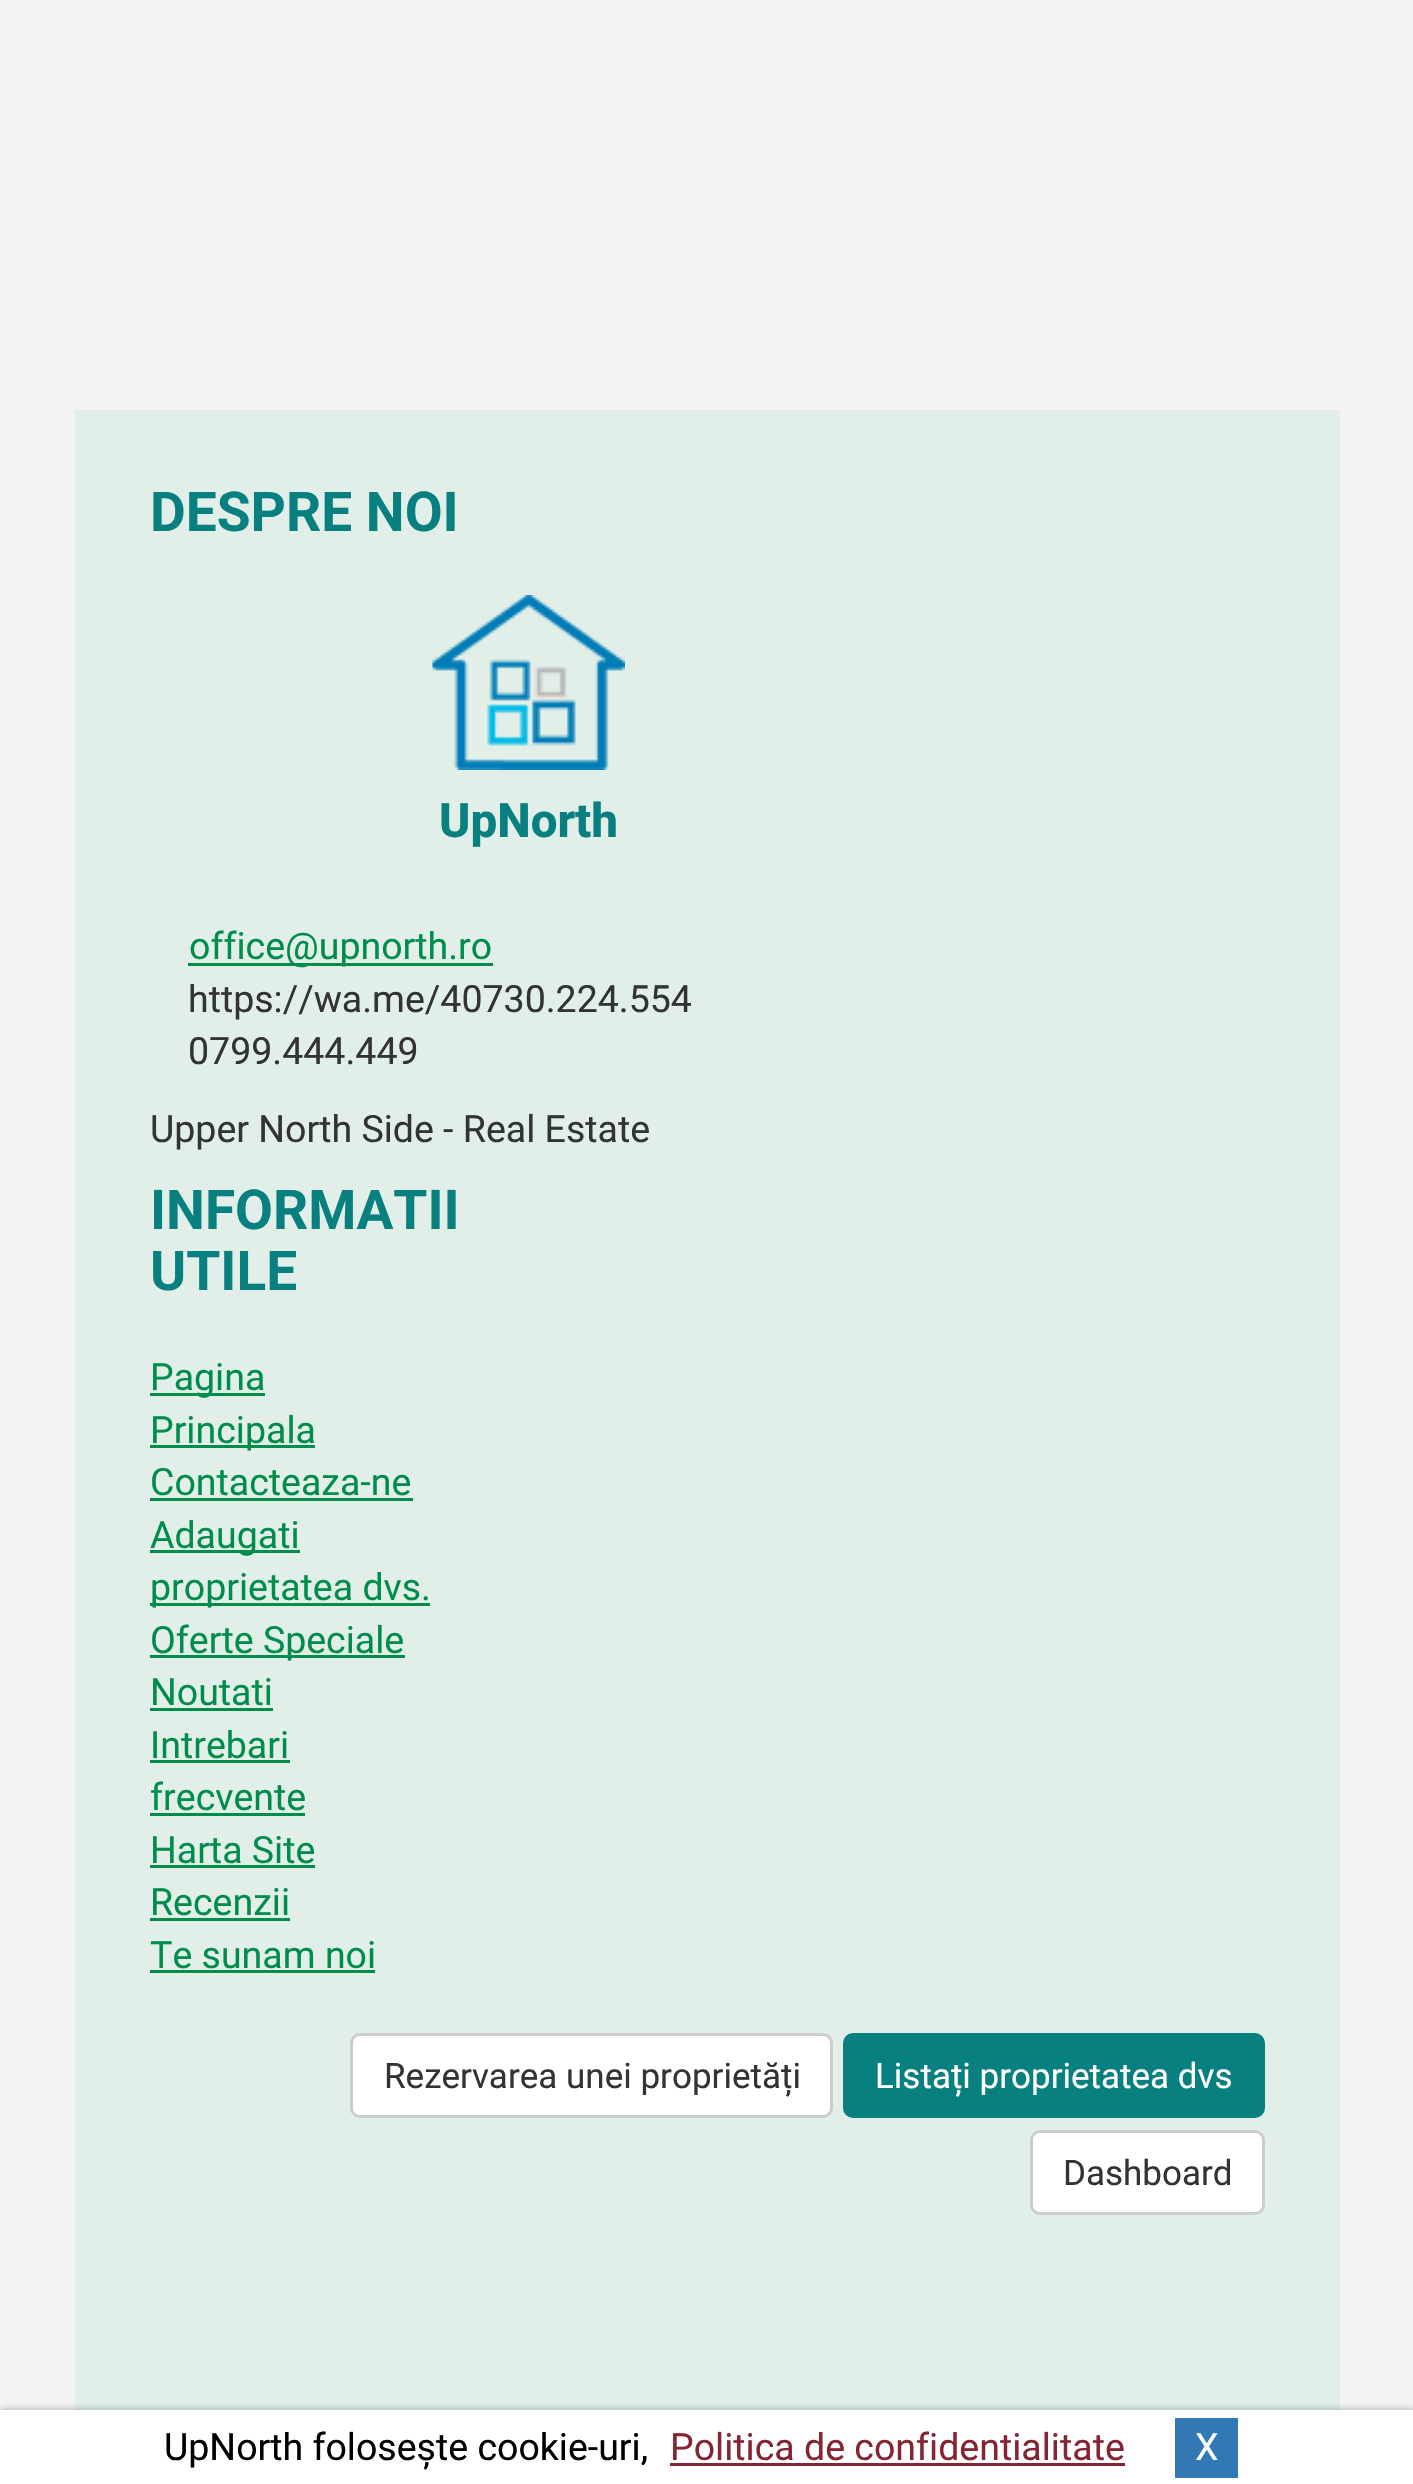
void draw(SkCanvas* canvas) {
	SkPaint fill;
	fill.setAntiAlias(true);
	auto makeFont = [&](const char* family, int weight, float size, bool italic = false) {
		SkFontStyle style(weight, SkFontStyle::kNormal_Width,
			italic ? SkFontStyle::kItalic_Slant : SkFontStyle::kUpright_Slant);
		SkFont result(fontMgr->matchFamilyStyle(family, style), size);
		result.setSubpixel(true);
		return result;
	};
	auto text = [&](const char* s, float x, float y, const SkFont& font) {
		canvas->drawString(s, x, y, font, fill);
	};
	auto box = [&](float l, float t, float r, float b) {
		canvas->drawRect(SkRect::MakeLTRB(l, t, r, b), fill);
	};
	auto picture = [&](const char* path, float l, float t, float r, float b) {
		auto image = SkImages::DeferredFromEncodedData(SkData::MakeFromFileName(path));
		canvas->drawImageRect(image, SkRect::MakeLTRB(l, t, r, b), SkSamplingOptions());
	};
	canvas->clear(0xFFF3F3F3);
	fill.setColor(0xFFE1EFE8);
	box(75, 410, 1340, 2410);
	picture("image0.png", 432, 595, 625, 770);
	fill.setColor(0xFF008D4C);
	box(188, 963, 493, 966);
	box(150, 1393, 265, 1396);
	box(150, 1445, 315, 1448);
	box(150, 1498, 413, 1501);
	box(150, 1550, 300, 1553);
	box(150, 1603, 430, 1606);
	box(150, 1655, 405, 1658);
	box(150, 1708, 273, 1711);
	box(150, 1760, 290, 1763);
	box(150, 1813, 305, 1816);
	box(150, 1865, 315, 1868);
	box(150, 1918, 290, 1921);
	box(150, 1970, 375, 1973);
	fill.setColor(0xFFFFFFFF);
	canvas->drawRoundRect(SkRect::MakeLTRB(351.5f, 2034.5f, 831.5f, 2116.5f), 8.5f, 8.5f, fill);
	fill.setStyle(SkPaint::kStroke_Style);
	fill.setStrokeWidth(3);
	fill.setColor(0xFFCCCCCC);
	canvas->drawRoundRect(SkRect::MakeLTRB(351.5f, 2034.5f, 831.5f, 2116.5f), 8.5f, 8.5f, fill);
	fill.setStyle(SkPaint::kFill_Style);
	fill.setColor(0xFF098080);
	canvas->drawRoundRect(SkRect::MakeLTRB(844.5f, 2034.5f, 1263.5f, 2116.5f), 8.5f, 8.5f, fill);
	fill.setStyle(SkPaint::kStroke_Style);
	canvas->drawRoundRect(SkRect::MakeLTRB(844.5f, 2034.5f, 1263.5f, 2116.5f), 8.5f, 8.5f, fill);
	fill.setStyle(SkPaint::kFill_Style);
	fill.setColor(0xFFFFFFFF);
	canvas->drawRoundRect(SkRect::MakeLTRB(1031.5f, 2131.5f, 1263.5f, 2213.5f), 8.5f, 8.5f, fill);
	fill.setStyle(SkPaint::kStroke_Style);
	fill.setColor(0xFFCCCCCC);
	canvas->drawRoundRect(SkRect::MakeLTRB(1031.5f, 2131.5f, 1263.5f, 2213.5f), 8.5f, 8.5f, fill);
	fill.setStyle(SkPaint::kFill_Style);
	fill.setColor(0x33000000);
	fill.setMaskFilter(SkMaskFilter::MakeBlur(kNormal_SkBlurStyle, 2.5f));
	canvas->drawRect(SkRect::MakeLTRB(0, 2408, 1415, 2483), fill);
	fill.setMaskFilter(nullptr);
	fill.setColor(0xFFFFFFFF);
	box(0, 2410, 1413, 2484);
	fill.setColor(0xFF852432);
	box(670, 2463, 1125, 2466);
	fill.setColor(0xFF3278B4);
	box(1175, 2418, 1238, 2478);
	auto font1 = makeFont("Roboto", 700, 55);
	fill.setColor(0xFF098080);
	text("DESPRE NOI", 150, 531, font1);
	auto font2 = makeFont("Roboto", 800, 47.5f);
	text("UpNorth", 439, 837, font2);
	auto font3 = makeFont("Roboto", 400, 37.5f);
	fill.setColor(0xFF008D4C);
	text("office@upnorth.ro", 189, 959, font3);
	fill.setColor(0xFF333333);
	text("https://wa.me/40730.224.554", 188, 1012, font3);
	text("0799.444.449", 188, 1064, font3);
	text("Upper North Side - Real Estate", 150, 1142, font3);
	fill.setColor(0xFF098080);
	text("INFORMATII", 150, 1229, font1);
	text("UTILE", 150, 1290, font1);
	fill.setColor(0xFF008D4C);
	text("Pagina", 150, 1390, font3);
	text("Principala", 150, 1443, font3);
	text("Contacteaza-ne", 150, 1495, font3);
	text("Adaugati", 150, 1548, font3);
	text("proprietatea dvs.", 150, 1600, font3);
	text("Oferte Speciale", 150, 1653, font3);
	text("Noutati", 150, 1705, font3);
	text("Intrebari", 150, 1758, font3);
	text("frecvente", 150, 1810, font3);
	text("Harta Site", 150, 1863, font3);
	text("Recenzii", 150, 1915, font3);
	text("Te sunam noi", 150, 1968, font3);
	auto font4 = makeFont("Roboto", 400, 35);
	fill.setColor(0xFF333333);
	text("Rezervarea unei proprietăți", 384, 2088, font4);
	fill.setColor(0xFFFFFFFF);
	text("Listați proprietatea dvs", 875, 2088, font4);
	fill.setColor(0xFF333333);
	text("Dashboard", 1063, 2185, font4);
	fill.setColor(0xFF000000);
	text("UpNorth folosește cookie-uri,", 164, 2460, font3);
	fill.setColor(0xFF852432);
	text("Politica de confidentialitate", 670, 2460, font3);
	fill.setColor(0xFFFFFFFF);
	text("X", 1195, 2460, font3);
}
